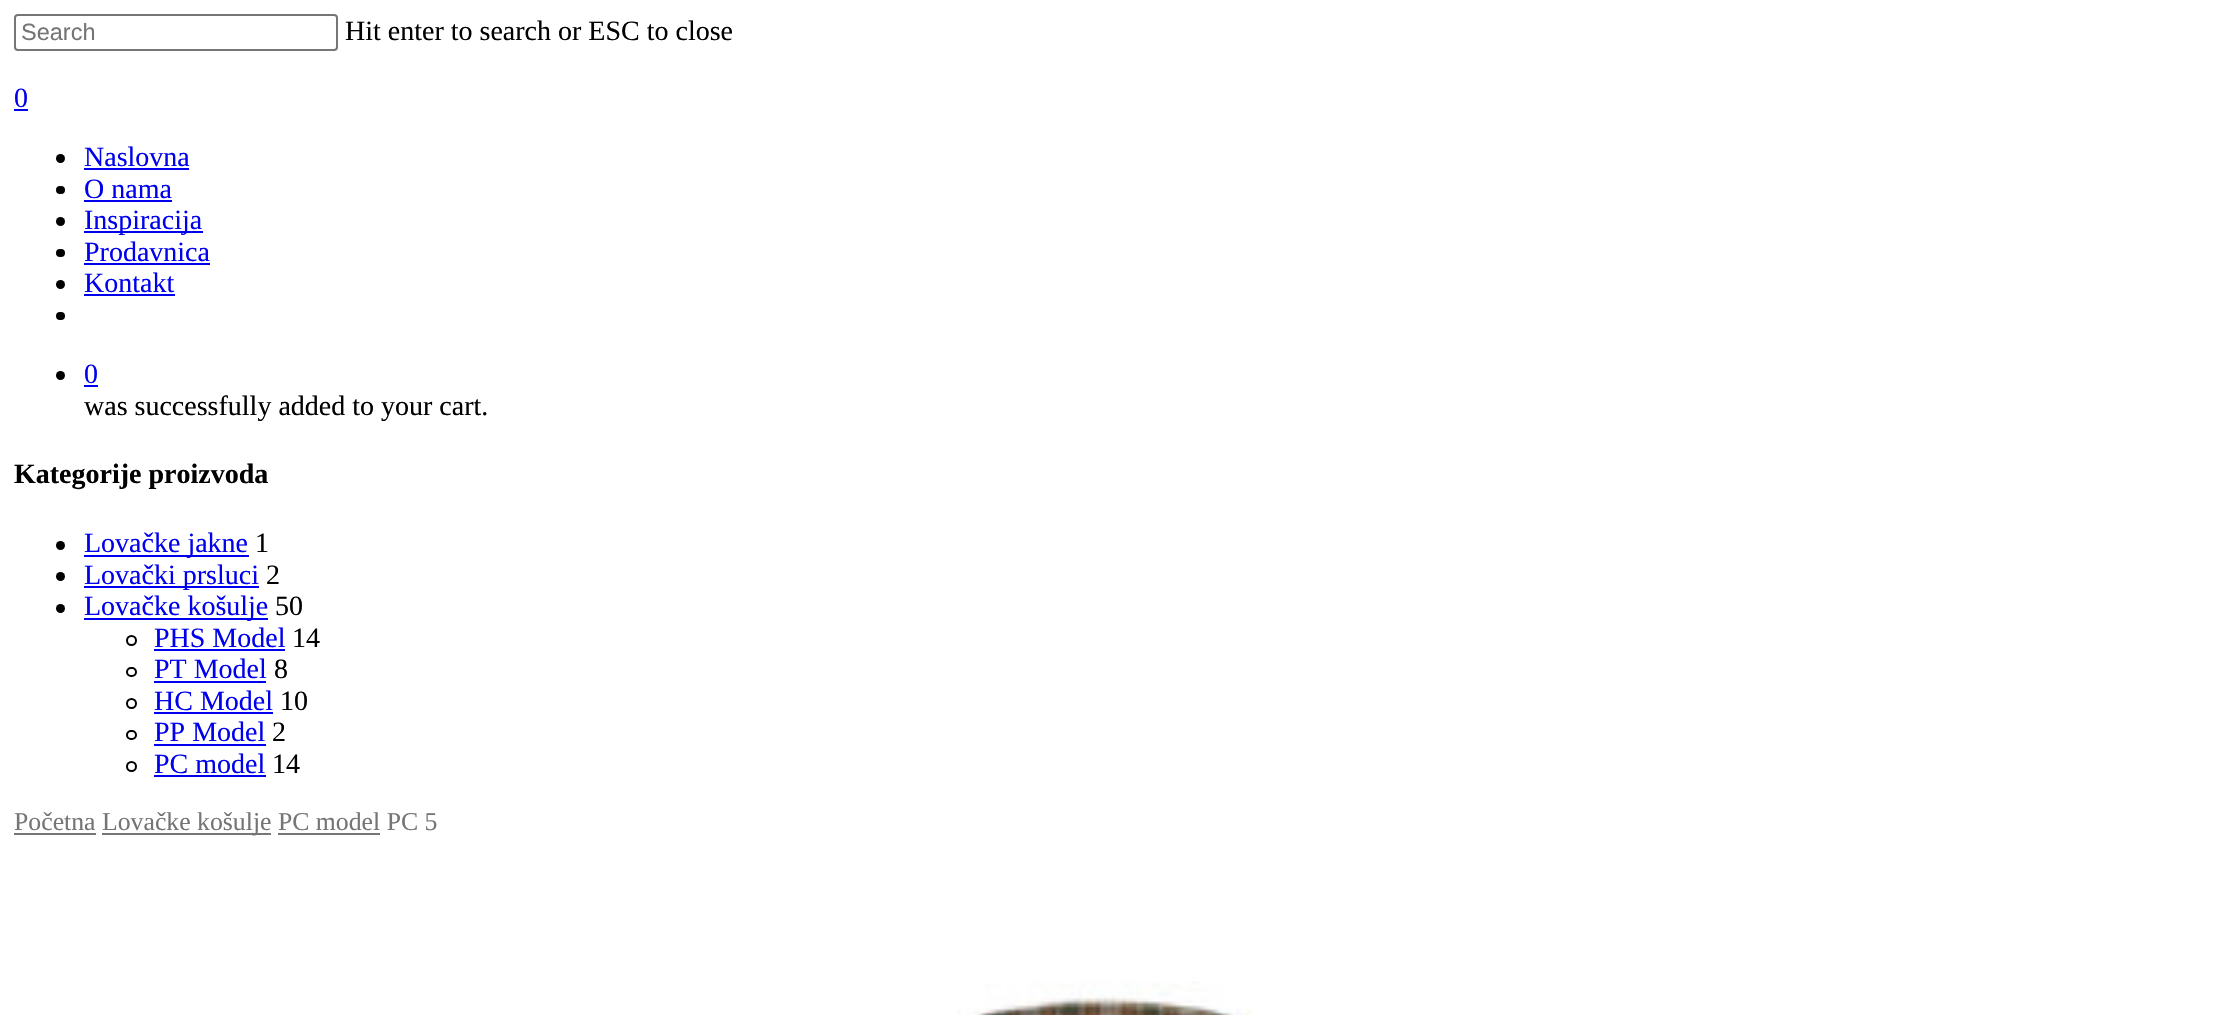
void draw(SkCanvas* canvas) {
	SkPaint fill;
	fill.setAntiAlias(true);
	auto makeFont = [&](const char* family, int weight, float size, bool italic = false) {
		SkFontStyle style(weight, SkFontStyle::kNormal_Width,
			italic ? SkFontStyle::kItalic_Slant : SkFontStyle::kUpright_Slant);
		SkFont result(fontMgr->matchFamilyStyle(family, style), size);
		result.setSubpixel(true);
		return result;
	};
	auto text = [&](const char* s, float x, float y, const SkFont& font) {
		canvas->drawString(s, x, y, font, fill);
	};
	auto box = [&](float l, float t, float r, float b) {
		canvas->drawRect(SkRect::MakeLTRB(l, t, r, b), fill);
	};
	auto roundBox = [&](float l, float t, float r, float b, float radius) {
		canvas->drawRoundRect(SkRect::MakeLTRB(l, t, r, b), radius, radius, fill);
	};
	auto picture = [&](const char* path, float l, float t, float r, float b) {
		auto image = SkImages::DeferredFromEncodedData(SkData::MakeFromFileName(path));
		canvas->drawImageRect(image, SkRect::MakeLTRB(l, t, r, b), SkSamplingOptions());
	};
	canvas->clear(0xFFFFFFFF);
	fill.setStyle(SkPaint::kStroke_Style);
	fill.setStrokeWidth(2);
	fill.setColor(0xFF767676);
	canvas->drawRoundRect(SkRect::MakeLTRB(15, 15, 337, 50), 3, 3, fill);
	fill.setStyle(SkPaint::kFill_Style);
	fill.setColor(0xFF0000EE);
	box(14, 109, 28, 111);
	fill.setColor(0xFF000000);
	canvas->drawCircle(60.5f, 158.5f, 4.5f, fill);
	fill.setColor(0xFF0000EE);
	box(84, 168, 189, 170);
	fill.setColor(0xFF000000);
	roundBox(56, 186, 65, 194, 4);
	fill.setColor(0xFF0000EE);
	box(84, 200, 172, 202);
	fill.setColor(0xFF000000);
	canvas->drawCircle(60.5f, 221.5f, 4.5f, fill);
	fill.setColor(0xFF0000EE);
	box(84, 231, 203, 233);
	fill.setColor(0xFF000000);
	roundBox(56, 249, 65, 257, 4);
	fill.setColor(0xFF0000EE);
	box(84, 263, 210, 265);
	fill.setColor(0xFF000000);
	canvas->drawCircle(60.5f, 284.5f, 4.5f, fill);
	fill.setColor(0xFF0000EE);
	box(84, 294, 175, 296);
	fill.setColor(0xFF000000);
	roundBox(56, 312, 65, 320, 4);
	canvas->drawCircle(60.5f, 375.5f, 4.5f, fill);
	fill.setColor(0xFF0000EE);
	box(84, 385, 98, 387);
	fill.setColor(0xFF000000);
	canvas->drawCircle(60.5f, 545.5f, 4.5f, fill);
	fill.setColor(0xFF0000EE);
	box(84, 555, 249, 557);
	fill.setColor(0xFF000000);
	canvas->drawCircle(60.5f, 576.5f, 4.5f, fill);
	fill.setColor(0xFF0000EE);
	box(84, 586, 259, 588);
	fill.setColor(0xFF000000);
	canvas->drawCircle(60.5f, 608.5f, 4.5f, fill);
	fill.setColor(0xFF0000EE);
	box(84, 618, 268, 620);
	fill.setStyle(SkPaint::kStroke_Style);
	fill.setColor(0xFF000000);
	canvas->drawCircle(131.5f, 640.5f, 4.5f, fill);
	fill.setStyle(SkPaint::kFill_Style);
	fill.setColor(0xFF0000EE);
	box(154, 649, 285, 651);
	fill.setStyle(SkPaint::kStroke_Style);
	fill.setColor(0xFF000000);
	canvas->drawRoundRect(SkRect::MakeLTRB(127, 668, 136, 676), 4, 4, fill);
	fill.setStyle(SkPaint::kFill_Style);
	fill.setColor(0xFF0000EE);
	box(154, 681, 266, 683);
	fill.setStyle(SkPaint::kStroke_Style);
	fill.setColor(0xFF000000);
	canvas->drawCircle(131.5f, 703.5f, 4.5f, fill);
	fill.setStyle(SkPaint::kFill_Style);
	fill.setColor(0xFF0000EE);
	box(154, 712, 273, 714);
	fill.setStyle(SkPaint::kStroke_Style);
	fill.setColor(0xFF000000);
	canvas->drawRoundRect(SkRect::MakeLTRB(127, 731, 136, 739), 4, 4, fill);
	fill.setStyle(SkPaint::kFill_Style);
	fill.setColor(0xFF0000EE);
	box(154, 744, 266, 746);
	fill.setStyle(SkPaint::kStroke_Style);
	fill.setColor(0xFF000000);
	canvas->drawCircle(131.5f, 766.5f, 4.5f, fill);
	fill.setStyle(SkPaint::kFill_Style);
	fill.setColor(0xFF0000EE);
	box(154, 775, 266, 777);
	fill.setColor(0xFF767676);
	box(14, 833, 96, 835);
	box(102, 833, 271, 835);
	picture("image0.png", 957, 981, 1252, 1015);
	auto font1 = makeFont("Liberation Sans", 400, 23.5f);
	fill.setColor(0xFF757575);
	text("Search", 21, 40, font1);
	auto font2 = makeFont("Liberation Serif", 400, 28);
	fill.setColor(0xFF000000);
	text("Hit enter to search or ESC to close", 345, 40, font2);
	fill.setColor(0xFF0000EE);
	text("0", 14, 107, font2);
	text("Naslovna", 84, 166, font2);
	text("O nama", 84, 198, font2);
	text("Inspiracija", 84, 229, font2);
	text("Prodavnica", 84, 261, font2);
	text("Kontakt", 84, 292, font2);
	text("0", 84, 383, font2);
	fill.setColor(0xFF000000);
	text("was successfully added to your cart.", 84, 415, font2);
	auto font3 = makeFont("Liberation Serif", 700, 28);
	text("Kategorije proizvoda", 14, 483, font3);
	fill.setColor(0xFF0000EE);
	text("Lovačke jakne", 84, 552, font2);
	fill.setColor(0xFF000000);
	text("1", 255, 552, font2);
	fill.setColor(0xFF0000EE);
	text("Lovački prsluci", 84, 584, font2);
	fill.setColor(0xFF000000);
	text("2", 266, 584, font2);
	fill.setColor(0xFF0000EE);
	text("Lovačke košulje", 84, 615, font2);
	fill.setColor(0xFF000000);
	text("50", 275, 615, font2);
	fill.setColor(0xFF0000EE);
	text("PHS Model", 154, 647, font2);
	fill.setColor(0xFF000000);
	text("14", 292, 647, font2);
	fill.setColor(0xFF0000EE);
	text("PT Model", 154, 678, font2);
	fill.setColor(0xFF000000);
	text("8", 274, 678, font2);
	fill.setColor(0xFF0000EE);
	text("HC Model", 154, 710, font2);
	fill.setColor(0xFF000000);
	text("10", 280, 710, font2);
	fill.setColor(0xFF0000EE);
	text("PP Model", 154, 741, font2);
	fill.setColor(0xFF000000);
	text("2", 272, 741, font2);
	fill.setColor(0xFF0000EE);
	text("PC model", 154, 773, font2);
	fill.setColor(0xFF000000);
	text("14", 272, 773, font2);
	auto font4 = makeFont("Liberation Serif", 400, 25.75f);
	fill.setColor(0xFF757575);
	text("Početna", 14, 830, font4);
	text("Lovačke košulje PC model PC 5", 102, 830, font4);
	fill.setColor(0xFF767676);
	box(278, 833, 380, 835);
}
